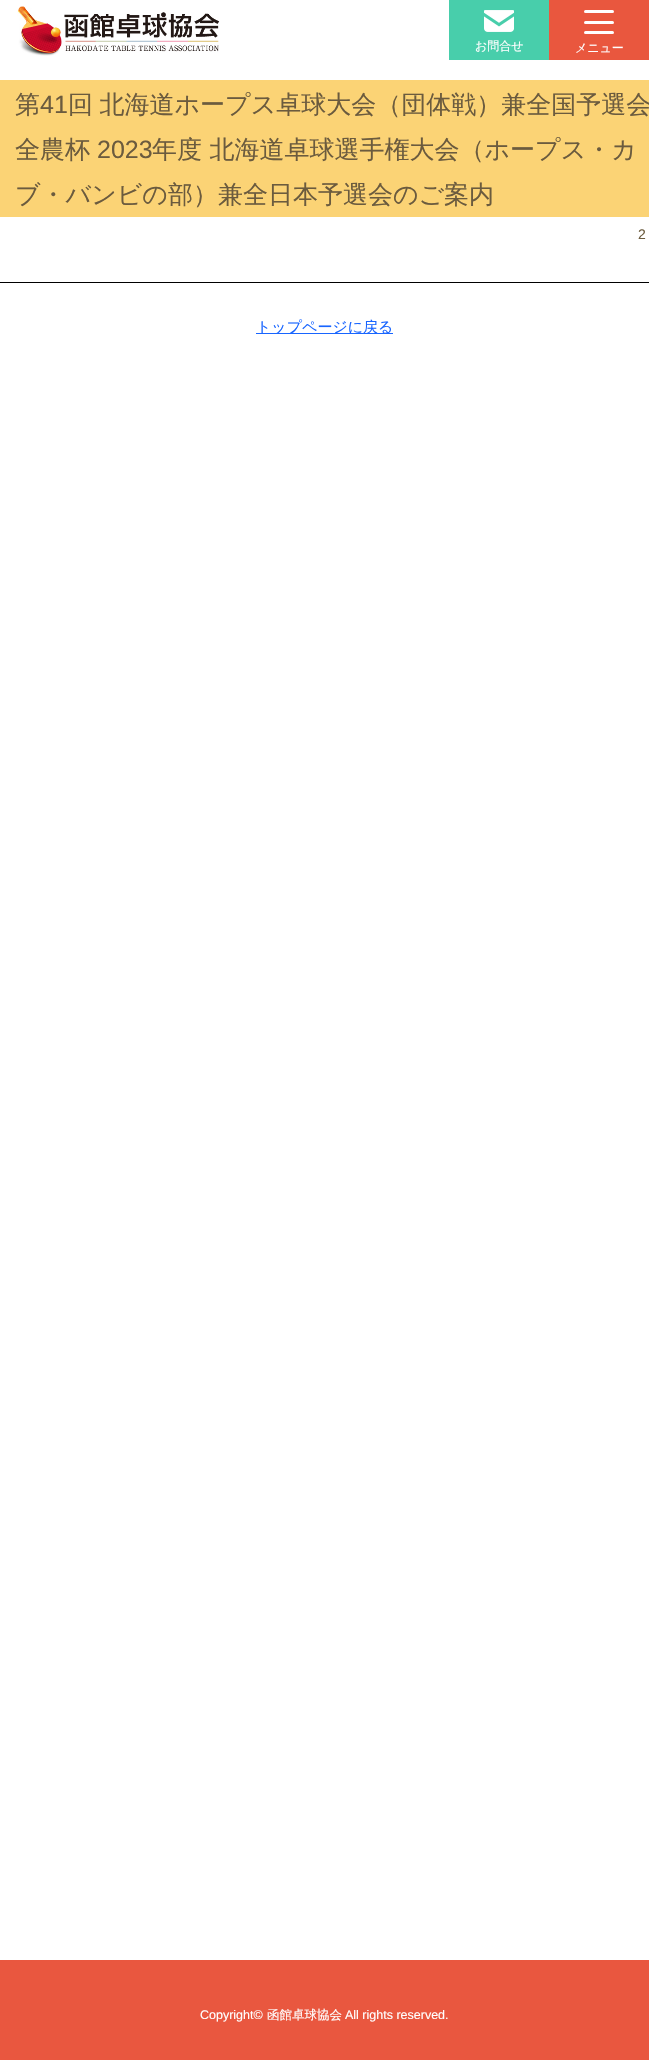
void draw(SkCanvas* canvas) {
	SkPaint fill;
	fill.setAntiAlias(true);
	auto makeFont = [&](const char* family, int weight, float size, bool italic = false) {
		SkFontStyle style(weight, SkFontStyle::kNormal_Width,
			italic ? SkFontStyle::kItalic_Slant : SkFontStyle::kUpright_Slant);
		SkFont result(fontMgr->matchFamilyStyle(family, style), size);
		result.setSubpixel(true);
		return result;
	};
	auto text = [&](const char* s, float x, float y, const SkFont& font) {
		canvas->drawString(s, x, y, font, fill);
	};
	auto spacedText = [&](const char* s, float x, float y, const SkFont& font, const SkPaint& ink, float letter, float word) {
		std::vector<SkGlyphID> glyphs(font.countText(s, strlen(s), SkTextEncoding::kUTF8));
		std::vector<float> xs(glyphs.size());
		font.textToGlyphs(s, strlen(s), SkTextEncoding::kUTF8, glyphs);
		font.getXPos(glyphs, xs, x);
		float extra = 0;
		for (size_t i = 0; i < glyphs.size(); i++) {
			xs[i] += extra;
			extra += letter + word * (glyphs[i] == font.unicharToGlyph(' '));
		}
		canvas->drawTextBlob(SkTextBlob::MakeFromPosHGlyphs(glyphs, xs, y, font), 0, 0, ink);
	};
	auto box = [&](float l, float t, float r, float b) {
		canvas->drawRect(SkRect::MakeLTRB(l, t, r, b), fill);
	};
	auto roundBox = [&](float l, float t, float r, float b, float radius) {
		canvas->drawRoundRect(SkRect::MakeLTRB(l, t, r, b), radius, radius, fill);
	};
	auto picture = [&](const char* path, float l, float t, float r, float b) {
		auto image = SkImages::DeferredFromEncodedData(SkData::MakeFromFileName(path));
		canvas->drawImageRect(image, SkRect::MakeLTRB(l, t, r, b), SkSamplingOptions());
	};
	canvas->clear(0xFFFFFFFF);
	picture("image0.png", 17, 6, 220, 56);
	fill.setColor(0xFF48CEAB);
	box(449, 0, 549, 60);
	picture("image1.png", 484, 10, 514, 32);
	fill.setColor(0xFFE9573E);
	box(549, 0, 649, 60);
	fill.setColor(0xFFFFFFFF);
	roundBox(584, 10, 614, 13, 1.5f);
	roundBox(584, 21, 614, 24, 1.5f);
	roundBox(584, 31, 614, 34, 1.5f);
	fill.setColor(0xFF000000);
	box(0, 282, 649, 283);
	fill.setColor(0xFFFBD375);
	box(0, 80, 649, 217);
	fill.setColor(0xFF1865FF);
	box(256, 333, 393, 334);
	fill.setColor(0xFFE9573F);
	box(0, 1960, 649, 2060);
	auto font1 = makeFont("WenQuanYi Zen Hei", 500, 12);
	fill.setColor(0xFFFFFFFF);
	text("お問合せ", 475, 50, font1);
	text("メニュー", 575, 52, font1);
	auto font2 = makeFont("WenQuanYi Zen Hei", 500, 25);
	fill.setColor(0xFF6B5B3E);
	text("第", 15, 113, font2);
	auto font3 = makeFont("Liberation Sans", 400, 25);
	text("41", 40, 113, font3);
	spacedText("回 北海道ホープス卓球大会（団体戦）兼全国予選会", 68, 113, font2, fill, 0, -1);
	text("全農杯", 15, 158, font2);
	text("2023", 97, 158, font3);
	text("年度 北海道卓球選手権大会（ホープス・カ", 152, 158, font2);
	text("ブ・バンビの部）兼全日本予選会のご案内", 15, 203, font2);
	auto font4 = makeFont("Liberation Sans", 400, 14);
	text("2", 638, 239, font4);
	auto font5 = makeFont("WenQuanYi Zen Hei", 500, 15);
	fill.setColor(0xFF1865FF);
	text("トップページに戻る", 256, 332, font5);
	auto font6 = makeFont("Liberation Sans", 400, 12.5f);
	fill.setColor(0xFFFFFFFF);
	text("Copyright©", 200, 2019, font6);
	auto font7 = makeFont("WenQuanYi Zen Hei", 500, 12.5f);
	text("函館卓球協会", 267, 2019, font7);
	text("All rights reserved.", 345, 2019, font6);
}
